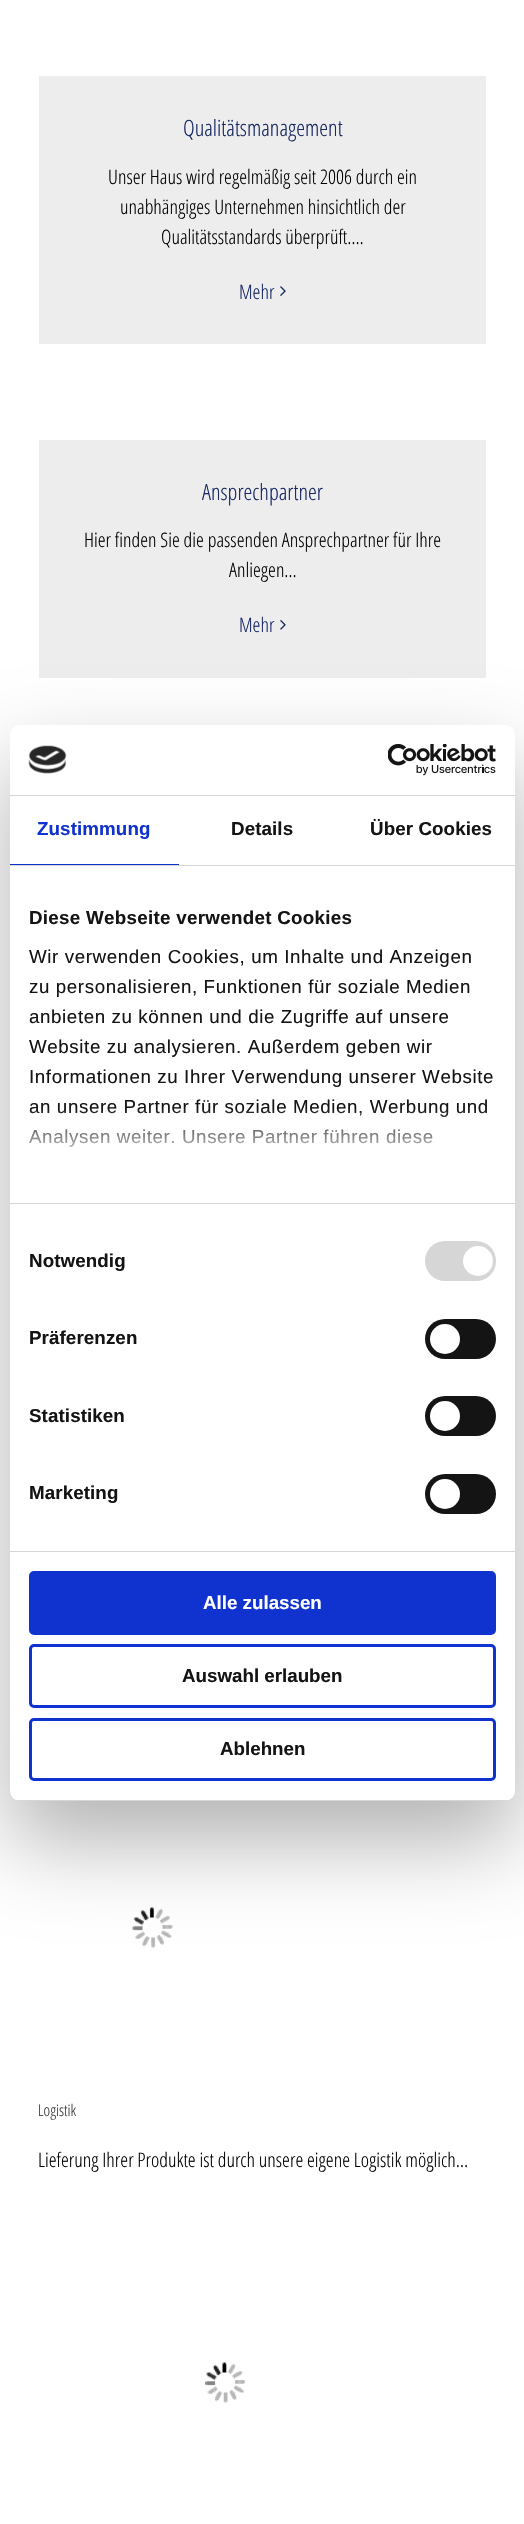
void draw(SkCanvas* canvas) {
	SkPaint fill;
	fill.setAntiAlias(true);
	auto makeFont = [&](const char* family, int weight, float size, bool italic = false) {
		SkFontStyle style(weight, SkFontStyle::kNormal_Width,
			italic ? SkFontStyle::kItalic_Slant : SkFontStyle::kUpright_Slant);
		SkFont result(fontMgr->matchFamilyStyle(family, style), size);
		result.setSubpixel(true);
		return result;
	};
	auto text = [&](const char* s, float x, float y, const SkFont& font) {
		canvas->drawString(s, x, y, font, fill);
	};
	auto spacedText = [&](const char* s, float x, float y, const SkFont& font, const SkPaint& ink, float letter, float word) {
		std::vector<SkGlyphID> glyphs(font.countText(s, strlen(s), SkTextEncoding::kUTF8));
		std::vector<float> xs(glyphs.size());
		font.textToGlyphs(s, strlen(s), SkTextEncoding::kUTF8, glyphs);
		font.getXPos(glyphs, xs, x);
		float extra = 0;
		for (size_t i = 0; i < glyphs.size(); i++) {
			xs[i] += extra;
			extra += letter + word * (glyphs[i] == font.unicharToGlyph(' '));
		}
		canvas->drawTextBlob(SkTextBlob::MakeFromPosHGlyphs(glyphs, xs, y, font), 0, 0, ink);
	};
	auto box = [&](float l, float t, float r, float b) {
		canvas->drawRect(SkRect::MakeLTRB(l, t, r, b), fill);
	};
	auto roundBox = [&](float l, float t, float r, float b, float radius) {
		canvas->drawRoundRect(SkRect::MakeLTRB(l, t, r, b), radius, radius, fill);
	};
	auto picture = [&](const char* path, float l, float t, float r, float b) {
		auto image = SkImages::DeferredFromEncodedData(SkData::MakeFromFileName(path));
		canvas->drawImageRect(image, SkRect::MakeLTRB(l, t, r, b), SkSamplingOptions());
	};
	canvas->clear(0xFFFFFFFF);
	fill.setColor(0xFFEDEDED);
	box(39, 76, 486, 344);
	picture("image0.png", 280, 286, 286, 296);
	box(39, 440, 486, 678);
	picture("image1.png", 280, 620, 286, 630);
	picture("image2.png", 132, 1907, 173, 1948);
	picture("image3.png", 205, 2362, 245, 2403);
	fill.setColor(0x4D000000);
	fill.setMaskFilter(SkMaskFilter::MakeBlur(kNormal_SkBlurStyle, 42.5f));
	canvas->drawRoundRect(SkRect::MakeLTRB(10, 765, 515, 1841), 10, 10, fill);
	fill.setMaskFilter(nullptr);
	fill.setColor(0xFFFFFFFF);
	roundBox(10, 725, 515, 1801, 10);
	fill.setColor(0xFFD6D6D6);
	box(10, 795, 515, 796);
	picture("image4.png", 28, 745, 67, 774);
	picture("image5.png", 388, 744, 496, 776);
	box(10, 865, 515, 866);
	fill.setColor(0xFF1032CF);
	box(10, 864, 179, 865);
	fill.setColor(0xFFD6D6D6);
	box(10, 1203, 515, 1204);
	box(10, 1551, 515, 1552);
	roundBox(425, 1241, 496, 1281, 20);
	fill.setColor(0xFFFFFFFF);
	canvas->drawCircle(478, 1261, 15, fill);
	fill.setColor(0xFF141414);
	roundBox(425, 1319, 496, 1359, 20);
	fill.setColor(0xFFFFFFFF);
	canvas->drawCircle(445, 1339, 15, fill);
	fill.setColor(0xFF141414);
	roundBox(425, 1396, 496, 1436, 20);
	fill.setColor(0xFFFFFFFF);
	canvas->drawCircle(445, 1416, 15, fill);
	fill.setColor(0xFF141414);
	roundBox(425, 1474, 496, 1514, 20);
	fill.setColor(0xFFFFFFFF);
	canvas->drawCircle(445, 1494, 15, fill);
	canvas->save();
	canvas->clipPath(SkPathBuilder().moveTo(20, 725).lineTo(505, 725).cubicTo(510.5f, 725, 515, 729.5f, 515, 735).lineTo(515, 1791).cubicTo(515, 1796.5f, 510.5f, 1801, 505, 1801).lineTo(20, 1801).cubicTo(14.5f, 1801, 10, 1796.5f, 10, 1791).lineTo(10, 735).cubicTo(10, 729.5f, 14.5f, 725, 20, 725).close().detach(), true);
	fill.setColor(0xFFD6D6D6);
	box(10, 1800, 515, 1801);
	canvas->restore();
	fill.setColor(0xFF1032CF);
	canvas->drawRoundRect(SkRect::MakeLTRB(30.5f, 1572.5f, 494.5f, 1633.5f), 3.5f, 3.5f, fill);
	fill.setStyle(SkPaint::kStroke_Style);
	fill.setStrokeWidth(3);
	canvas->drawRoundRect(SkRect::MakeLTRB(30.5f, 1572.5f, 494.5f, 1633.5f), 3.5f, 3.5f, fill);
	canvas->drawRoundRect(SkRect::MakeLTRB(30.5f, 1645.5f, 494.5f, 1706.5f), 3.5f, 3.5f, fill);
	canvas->drawRoundRect(SkRect::MakeLTRB(30.5f, 1719.5f, 494.5f, 1779.5f), 3.5f, 3.5f, fill);
	auto font1 = makeFont("Open Sans Condensed", 300, 22.5f);
	fill.setStyle(SkPaint::kFill_Style);
	fill.setColor(0xFF162762);
	text("Qualitätsmanagement", 183, 136, font1);
	auto font2 = makeFont("Open Sans Condensed", 300, 20);
	fill.setColor(0xFF000000);
	text("Unser Haus wird regelmäßig seit 2006 durch ein", 108, 184, font2);
	text("unabhängiges Unternehmen hinsichtlich der", 120, 214, font2);
	text("Qualitätsstandards überprüft….", 161, 244, font2);
	fill.setColor(0xFF162762);
	text("Mehr", 239, 299, font2);
	text("Ansprechpartner", 202, 500, font1);
	fill.setColor(0xFF000000);
	text("Hier finden Sie die passenden Ansprechpartner für Ihre", 84, 547, font2);
	text("Anliegen…", 229, 577, font2);
	fill.setColor(0xFF162762);
	text("Mehr", 239, 632, font2);
	auto font3 = makeFont("Open Sans Condensed", 300, 16);
	fill.setColor(0xFF333333);
	text("Logistik", 38, 2116, font3);
	fill.setColor(0xFF000000);
	text("Lieferung Ihrer Produkte ist durch unsere eigene Logistik möglich…", 38, 2167, font2);
	auto font4 = makeFont("Liberation Sans", 700, 18.75f);
	fill.setColor(0xFF1032CF);
	spacedText("Zustimmung", 37, 835, font4, fill, 0.1f, 0);
	fill.setColor(0xFF141414);
	spacedText("Details", 231, 835, font4, fill, 0.1f, 0);
	spacedText("Über Cookies", 370, 835, font4, fill, 0.1f, 0);
	spacedText("Diese Webseite verwendet Cookies", 29, 924, font4, fill, 0.3f, 0);
	auto font5 = makeFont("Liberation Sans", 400, 18.75f);
	spacedText("Wir verwenden Cookies, um Inhalte und Anzeigen", 29, 963, font5, fill, 0.6f, 0);
	spacedText("zu personalisieren, Funktionen für soziale Medien", 29, 993, font5, fill, 0.6f, 0);
	spacedText("anbieten zu können und die Zugriffe auf unsere", 29, 1023, font5, fill, 0.6f, 0);
	spacedText("Website zu analysieren. Außerdem geben wir", 29, 1053, font5, fill, 0.6f, 0);
	spacedText("Informationen zu Ihrer Verwendung unserer Website", 29, 1083, font5, fill, 0.6f, 0);
	spacedText("an unsere Partner für soziale Medien, Werbung und", 29, 1113, font5, fill, 0.6f, 0);
	spacedText("Analysen weiter. Unsere Partner führen diese", 29, 1143, font5, fill, 0.6f, 0);
	{
		const SkColor colors[] = {0xFFFFFFFF, 0xCCFFFFFF, 0x00FFFFFF};
		const float stops[] = {0, 0.5f, 1};
		const SkPoint ends[] = {{254, 1202}, {254, 1108}};
		fill.setShader(SkGradientShader::MakeLinear(ends, colors, stops, 3, SkTileMode::kClamp));
		fill.setAlpha(255);
	}
	box(28, 1109, 488, 1147);
	fill.setShader(nullptr);
	fill.setColor(0xFF141414);
	spacedText("Notwendig", 29, 1267, font4, fill, 0.1f, 0);
	spacedText("Präferenzen", 29, 1344, font4, fill, 0.1f, 0);
	spacedText("Statistiken", 29, 1422, font4, fill, 0.1f, 0);
	spacedText("Marketing", 29, 1499, font4, fill, 0.1f, 0);
	fill.setColor(0xFFFFFFFF);
	text("Alle zulassen", 203, 1609, font4);
	fill.setColor(0xFF141414);
	text("Auswahl erlauben", 182, 1682, font4);
	text("Ablehnen", 220, 1755, font4);
}
